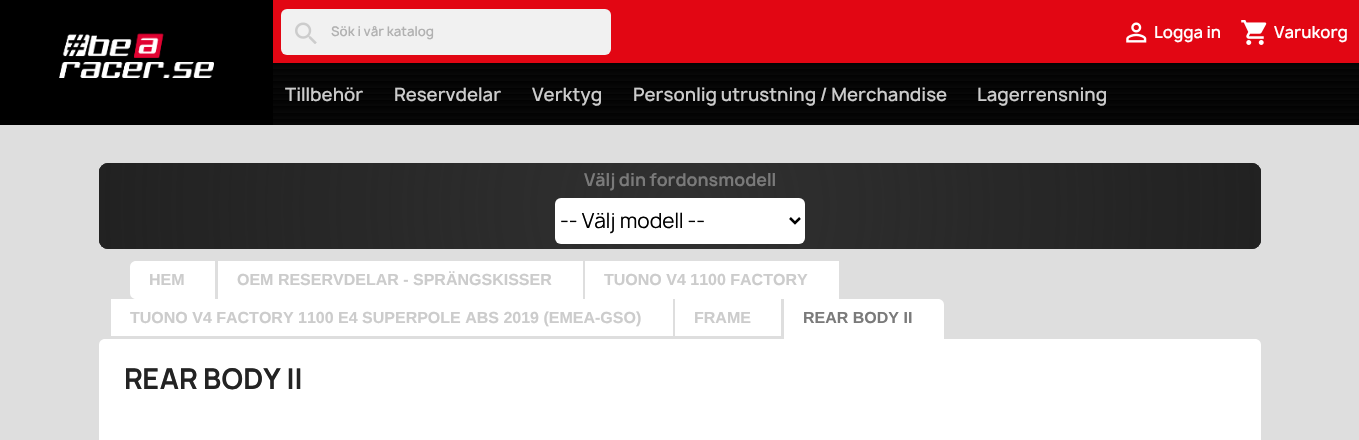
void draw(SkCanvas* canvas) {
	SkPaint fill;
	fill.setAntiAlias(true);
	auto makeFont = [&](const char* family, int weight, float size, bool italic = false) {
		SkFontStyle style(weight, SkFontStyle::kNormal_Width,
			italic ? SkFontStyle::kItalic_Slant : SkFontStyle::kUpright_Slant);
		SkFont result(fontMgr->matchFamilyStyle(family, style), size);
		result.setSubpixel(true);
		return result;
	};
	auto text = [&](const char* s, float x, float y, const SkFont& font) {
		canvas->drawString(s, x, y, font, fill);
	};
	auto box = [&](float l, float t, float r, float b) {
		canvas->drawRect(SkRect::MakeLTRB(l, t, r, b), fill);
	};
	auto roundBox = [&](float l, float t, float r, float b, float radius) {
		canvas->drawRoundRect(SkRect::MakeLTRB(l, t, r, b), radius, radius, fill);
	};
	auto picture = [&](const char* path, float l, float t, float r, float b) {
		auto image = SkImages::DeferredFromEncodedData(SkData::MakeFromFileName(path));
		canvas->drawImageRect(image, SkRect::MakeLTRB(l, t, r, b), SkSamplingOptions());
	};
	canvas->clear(0xFFDEDEDE);
	fill.setColor(0xFF000000);
	box(0, 0, 273, 125);
	picture("image0.png", 59, 33, 214, 78);
	fill.setColor(0xFFE20613);
	box(273, 0, 1359, 63);
	fill.setColor(0xFFF1F1F1);
	roundBox(281, 9, 611, 55, 6);
	picture("image1.png", 295, 22, 317, 44);
	picture("image2.png", 1126, 22, 1147, 43);
	picture("image3.png", 1241, 20, 1267, 45);
	{
		const SkColor colors[] = {0xFF020202, 0xFF080808};
		const float stops[] = {0, 1};
		const SkPoint ends[] = {{279, 63}, {279, 69}};
		fill.setShader(SkGradientShader::MakeLinear(ends, colors, stops, 2, SkTileMode::kClamp));
		fill.setAlpha(255);
	}
	box(273, 63, 1359, 69);
	{
		const SkColor colors[] = {0xFF020202, 0xFF080808};
		const float stops[] = {0, 1};
		const SkPoint ends[] = {{279, 69}, {279, 75}};
		fill.setShader(SkGradientShader::MakeLinear(ends, colors, stops, 2, SkTileMode::kClamp));
		fill.setAlpha(255);
	}
	box(273, 69, 1359, 75);
	{
		const SkColor colors[] = {0xFF020202, 0xFF080808};
		const float stops[] = {0, 1};
		const SkPoint ends[] = {{279, 75}, {279, 81}};
		fill.setShader(SkGradientShader::MakeLinear(ends, colors, stops, 2, SkTileMode::kClamp));
		fill.setAlpha(255);
	}
	box(273, 75, 1359, 81);
	{
		const SkColor colors[] = {0xFF020202, 0xFF080808};
		const float stops[] = {0, 1};
		const SkPoint ends[] = {{279, 81}, {279, 88}};
		fill.setShader(SkGradientShader::MakeLinear(ends, colors, stops, 2, SkTileMode::kClamp));
		fill.setAlpha(255);
	}
	box(273, 81, 1359, 88);
	{
		const SkColor colors[] = {0xFF020202, 0xFF080808};
		const float stops[] = {0, 1};
		const SkPoint ends[] = {{279, 88}, {279, 94}};
		fill.setShader(SkGradientShader::MakeLinear(ends, colors, stops, 2, SkTileMode::kClamp));
		fill.setAlpha(255);
	}
	box(273, 88, 1359, 94);
	{
		const SkColor colors[] = {0xFF020202, 0xFF080808};
		const float stops[] = {0, 1};
		const SkPoint ends[] = {{279, 94}, {279, 100}};
		fill.setShader(SkGradientShader::MakeLinear(ends, colors, stops, 2, SkTileMode::kClamp));
		fill.setAlpha(255);
	}
	box(273, 94, 1359, 100);
	{
		const SkColor colors[] = {0xFF020202, 0xFF080808};
		const float stops[] = {0, 1};
		const SkPoint ends[] = {{279, 100}, {279, 106}};
		fill.setShader(SkGradientShader::MakeLinear(ends, colors, stops, 2, SkTileMode::kClamp));
		fill.setAlpha(255);
	}
	box(273, 100, 1359, 106);
	{
		const SkColor colors[] = {0xFF020202, 0xFF080808};
		const float stops[] = {0, 1};
		const SkPoint ends[] = {{279, 106}, {279, 113}};
		fill.setShader(SkGradientShader::MakeLinear(ends, colors, stops, 2, SkTileMode::kClamp));
		fill.setAlpha(255);
	}
	box(273, 106, 1359, 113);
	{
		const SkColor colors[] = {0xFF020202, 0xFF080808};
		const float stops[] = {0, 1};
		const SkPoint ends[] = {{279, 113}, {279, 119}};
		fill.setShader(SkGradientShader::MakeLinear(ends, colors, stops, 2, SkTileMode::kClamp));
		fill.setAlpha(255);
	}
	box(273, 113, 1359, 119);
	{
		const SkColor colors[] = {0xFF020202, 0xFF080808};
		const float stops[] = {0, 1};
		const SkPoint ends[] = {{279, 119}, {279, 125}};
		fill.setShader(SkGradientShader::MakeLinear(ends, colors, stops, 2, SkTileMode::kClamp));
		fill.setAlpha(255);
	}
	box(273, 119, 1359, 125);
	fill.setShader(nullptr);
	fill.setColor(0xFF212121);
	roundBox(99, 163, 1261, 249, 9);
	fill.setColor(0xD4383838);
	roundBox(99, 163, 1261, 249, 9);
	fill.setColor(0x40212121);
	roundBox(99, 163, 1261, 249, 9);
	{
		const SkColor colors[] = {0x00212121, 0xFF212121};
		const float stops[] = {0, 1};
		fill.setShader(SkGradientShader::MakeRadial({680, 206}, 583, colors, stops, 2, SkTileMode::kClamp));
		fill.setAlpha(255);
	}
	roundBox(99, 163, 1261, 249, 9);
	fill.setShader(nullptr);
	fill.setColor(0xFFFFFFFF);
	roundBox(555, 198, 805, 244, 6);
	fill.setStyle(SkPaint::kStroke_Style);
	fill.setStrokeWidth(2.5f);
	fill.setColor(0xFF000000);
	canvas->drawPath(SkPathBuilder().moveTo(790, 218).lineTo(795, 223).lineTo(800, 218).detach(), fill);
	fill.setStyle(SkPaint::kFill_Style);
	fill.setColor(0xFFFFFFFF);
	canvas->drawPath(SkPathBuilder().moveTo(136, 261).lineTo(215, 261).lineTo(215, 299).lineTo(136, 299).cubicTo(132.5f, 299, 130, 296.5f, 130, 293).lineTo(130, 267).cubicTo(130, 263.5f, 132.5f, 261, 136, 261).close().detach(), fill);
	box(218, 261, 583, 299);
	box(585, 261, 839, 299);
	box(111, 299, 673, 336);
	box(675, 299, 781, 336);
	canvas->drawPath(SkPathBuilder().moveTo(784, 299).lineTo(938, 299).cubicTo(941.5f, 299, 944, 301.5f, 944, 305).lineTo(944, 339).lineTo(784, 339).close().detach(), fill);
	canvas->drawPath(SkPathBuilder().moveTo(105, 339).lineTo(1255, 339).cubicTo(1258.5f, 339, 1261, 341.5f, 1261, 345).lineTo(1261, 395).lineTo(99, 395).lineTo(99, 345).cubicTo(99, 341.5f, 101.5f, 339, 105, 339).close().detach(), fill);
	box(99, 395, 1261, 440);
	auto font1 = makeFont("Manrope", 600, 12.75f);
	fill.setColor(0xFFB1B1B1);
	text("Sök i vår katalog", 331, 36, font1);
	auto font2 = makeFont("Manrope", 600, 16);
	fill.setColor(0xFFFFFFFF);
	text("Logga in", 1154, 38, font2);
	text("Varukorg", 1274, 38, font2);
	auto font3 = makeFont("Manrope", 600, 17.75f);
	fill.setColor(0xFFCCCCCC);
	text("Tillbehör", 285, 101, font3);
	text("Reservdelar", 394, 101, font3);
	text("Verktyg", 532, 101, font3);
	text("Personlig utrustning / Merchandise", 633, 101, font3);
	text("Lagerrensning", 977, 101, font3);
	auto font4 = makeFont("Manrope", 700, 17);
	fill.setColor(0xFF7A7A7A);
	text("Välj din fordonsmodell", 584, 186, font4);
	auto font5 = makeFont("Manrope", 400, 20);
	fill.setColor(0xFF000000);
	text("-- Välj modell --", 560, 228, font5);
	auto font6 = makeFont("Liberation Sans", 700, 16);
	fill.setColor(0xFFCCCCCC);
	text("HEM", 149, 285, font6);
	text("OEM RESERVDELAR - SPRÄNGSKISSER", 237, 285, font6);
	text("TUONO V4 1100 FACTORY", 604, 285, font6);
	text("TUONO V4 FACTORY 1100 E4 SUPERPOLE ABS 2019 (EMEA-GSO)", 130, 323, font6);
	text("FRAME", 694, 323, font6);
	fill.setColor(0xFF7A7A7A);
	text("REAR BODY II", 803, 323, font6);
	auto font7 = makeFont("Manrope", 700, 27.5f);
	fill.setColor(0xFF232323);
	text("REAR BODY II", 124, 389, font7);
}
